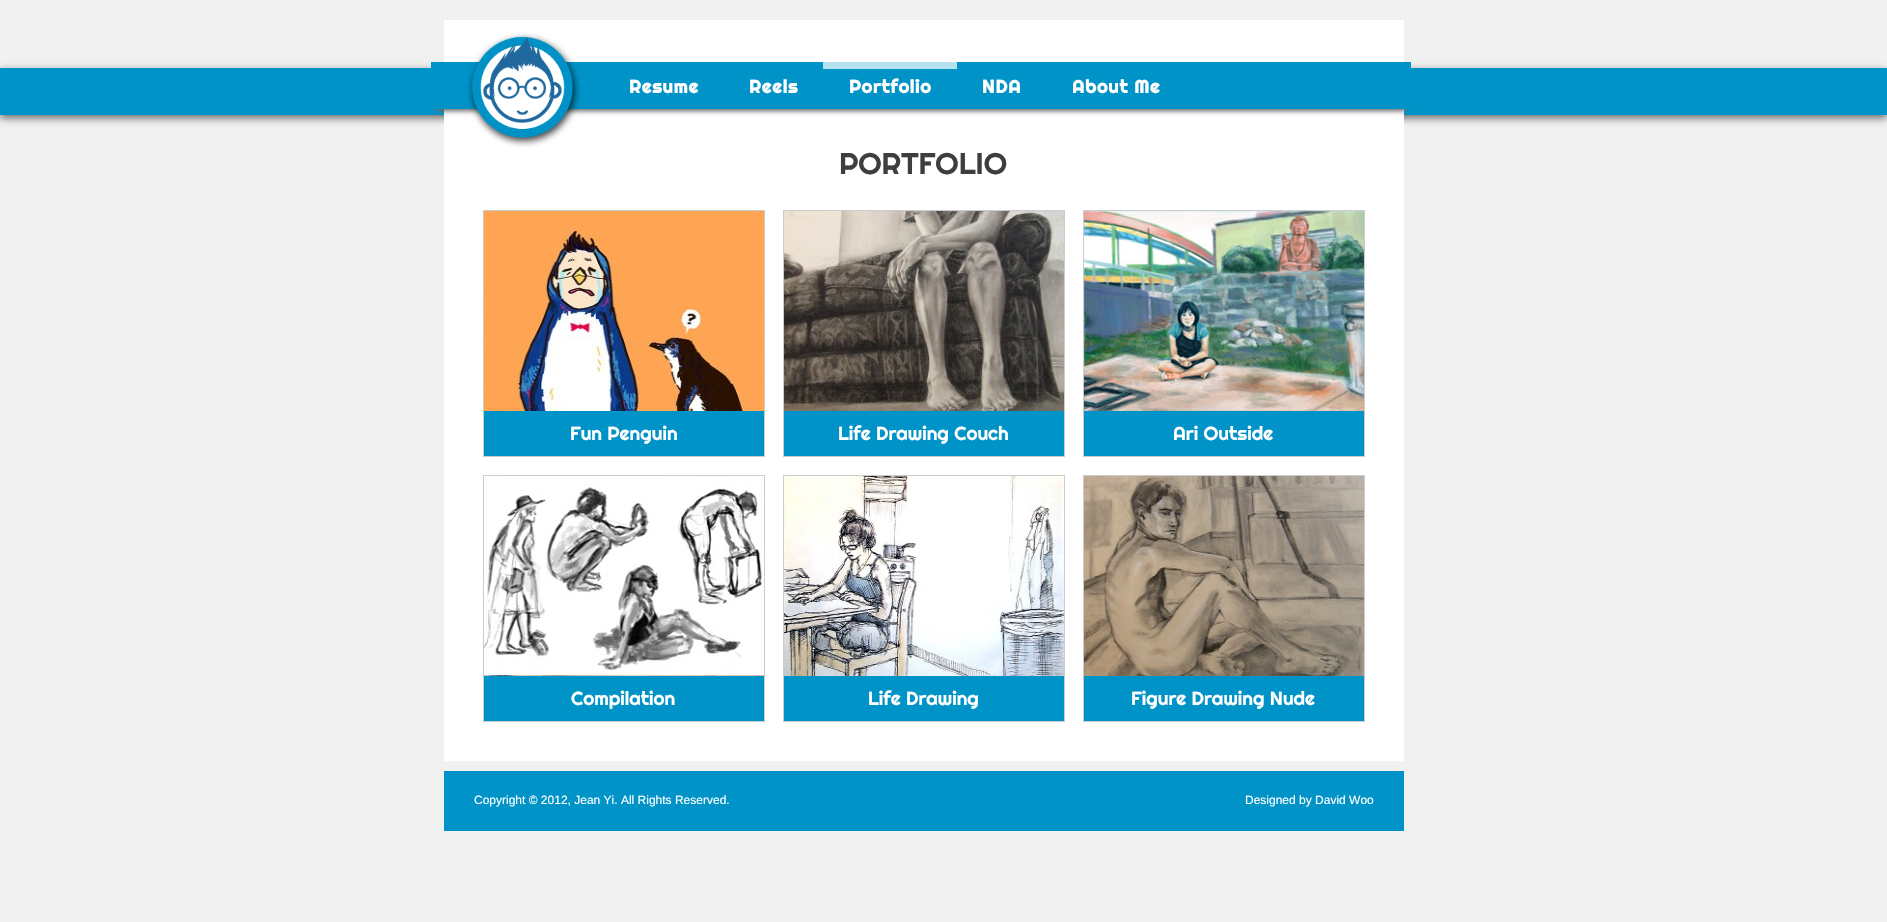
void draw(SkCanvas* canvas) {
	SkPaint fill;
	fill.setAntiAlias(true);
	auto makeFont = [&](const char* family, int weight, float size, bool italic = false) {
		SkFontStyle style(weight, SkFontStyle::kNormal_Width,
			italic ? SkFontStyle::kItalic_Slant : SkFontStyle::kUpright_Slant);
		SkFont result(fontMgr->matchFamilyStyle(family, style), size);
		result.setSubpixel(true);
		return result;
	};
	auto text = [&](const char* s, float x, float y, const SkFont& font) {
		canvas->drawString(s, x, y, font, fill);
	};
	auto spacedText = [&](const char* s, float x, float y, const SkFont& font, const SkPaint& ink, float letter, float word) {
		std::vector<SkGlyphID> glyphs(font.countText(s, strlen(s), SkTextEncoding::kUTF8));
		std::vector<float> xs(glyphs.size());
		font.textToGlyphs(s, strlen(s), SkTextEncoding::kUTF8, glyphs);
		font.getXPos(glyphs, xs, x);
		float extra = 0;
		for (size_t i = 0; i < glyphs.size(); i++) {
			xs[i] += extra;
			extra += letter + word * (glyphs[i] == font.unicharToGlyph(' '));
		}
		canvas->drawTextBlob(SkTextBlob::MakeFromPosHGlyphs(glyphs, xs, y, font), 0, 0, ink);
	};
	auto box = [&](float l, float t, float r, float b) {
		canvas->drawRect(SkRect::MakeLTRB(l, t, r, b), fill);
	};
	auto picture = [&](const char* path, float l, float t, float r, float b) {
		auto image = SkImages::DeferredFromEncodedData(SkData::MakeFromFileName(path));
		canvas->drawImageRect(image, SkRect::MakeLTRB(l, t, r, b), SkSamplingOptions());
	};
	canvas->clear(0xFFF1F1F1);
	fill.setColor(0xFF666666);
	fill.setMaskFilter(SkMaskFilter::MakeBlur(kNormal_SkBlurStyle, 4));
	canvas->drawRect(SkRect::MakeLTRB(0, 71, 1887, 118), fill);
	fill.setMaskFilter(nullptr);
	fill.setColor(0xFF0093C8);
	box(0, 68, 1887, 115);
	fill.setColor(0xFFFFFFFF);
	box(444, 20, 1404, 761);
	fill.setColor(0xFF666666);
	fill.setMaskFilter(SkMaskFilter::MakeBlur(kNormal_SkBlurStyle, 2.5f));
	canvas->drawRect(SkRect::MakeLTRB(436, 74, 1406, 111), fill);
	fill.setMaskFilter(nullptr);
	fill.setColor(0xFF0093C8);
	box(431, 62, 1411, 109);
	picture("image0.png", 467, 33, 581, 147);
	fill.setColor(0xFFB4E2F1);
	box(823, 62, 957, 69);
	fill.setColor(0xFF0093C8);
	box(484, 411, 764, 456);
	fill.setStyle(SkPaint::kStroke_Style);
	fill.setStrokeWidth(1);
	fill.setColor(0xFFCCCCCC);
	canvas->drawRect(SkRect::MakeLTRB(483.5f, 210.5f, 764.5f, 456.5f), fill);
	picture("image1.png", 484, 211, 764, 411);
	fill.setStyle(SkPaint::kFill_Style);
	fill.setColor(0xFF0093C8);
	box(784, 411, 1064, 456);
	fill.setStyle(SkPaint::kStroke_Style);
	fill.setColor(0xFFCCCCCC);
	canvas->drawRect(SkRect::MakeLTRB(783.5f, 210.5f, 1064.5f, 456.5f), fill);
	picture("image2.png", 784, 211, 1064, 411);
	fill.setStyle(SkPaint::kFill_Style);
	fill.setColor(0xFF0093C8);
	box(1084, 411, 1364, 456);
	fill.setStyle(SkPaint::kStroke_Style);
	fill.setColor(0xFFCCCCCC);
	canvas->drawRect(SkRect::MakeLTRB(1083.5f, 210.5f, 1364.5f, 456.5f), fill);
	picture("image3.png", 1084, 211, 1364, 411);
	fill.setStyle(SkPaint::kFill_Style);
	fill.setColor(0xFF0093C8);
	box(484, 676, 764, 721);
	fill.setStyle(SkPaint::kStroke_Style);
	fill.setColor(0xFFCCCCCC);
	canvas->drawRect(SkRect::MakeLTRB(483.5f, 475.5f, 764.5f, 721.5f), fill);
	picture("image4.png", 484, 476, 764, 676);
	fill.setStyle(SkPaint::kFill_Style);
	fill.setColor(0xFF0093C8);
	box(784, 676, 1064, 721);
	fill.setStyle(SkPaint::kStroke_Style);
	fill.setColor(0xFFCCCCCC);
	canvas->drawRect(SkRect::MakeLTRB(783.5f, 475.5f, 1064.5f, 721.5f), fill);
	picture("image5.png", 784, 476, 1064, 676);
	fill.setStyle(SkPaint::kFill_Style);
	fill.setColor(0xFF0093C8);
	box(1084, 676, 1364, 721);
	fill.setStyle(SkPaint::kStroke_Style);
	fill.setColor(0xFFCCCCCC);
	canvas->drawRect(SkRect::MakeLTRB(1083.5f, 475.5f, 1364.5f, 721.5f), fill);
	picture("image6.png", 1084, 476, 1364, 676);
	fill.setStyle(SkPaint::kFill_Style);
	fill.setColor(0xFF0093C8);
	box(444, 771, 1404, 831);
	auto font1 = makeFont("Righteous", 700, 18);
	fill.setColor(0xFFFFFFFF);
	spacedText("Resume", 629, 93, font1, fill, 1, 0);
	spacedText("Reels", 749, 93, font1, fill, 1, 0);
	spacedText("Portfolio", 849, 93, font1, fill, 1, 0);
	spacedText("NDA", 982, 93, font1, fill, 1, 0);
	spacedText("About Me", 1072, 93, font1, fill, 1, 0);
	auto font2 = makeFont("Righteous", 400, 30);
	fill.setColor(0xFF3E3E3E);
	text("PORTFOLIO", 839, 174, font2);
	auto font3 = makeFont("Righteous", 400, 19);
	fill.setColor(0xFFFFFFFF);
	text("Fun Penguin", 570, 440, font3);
	text("Life Drawing Couch", 838, 440, font3);
	text("Ari Outside", 1173, 440, font3);
	text("Compilation", 571, 705, font3);
	text("Life Drawing", 868, 705, font3);
	text("Figure Drawing Nude", 1131, 705, font3);
	auto font4 = makeFont("Liberation Sans", 400, 12);
	text("Copyright © 2012, Jean Yi. All Rights Reserved.", 474, 804, font4);
	text("Designed by David Woo", 1245, 804, font4);
}
